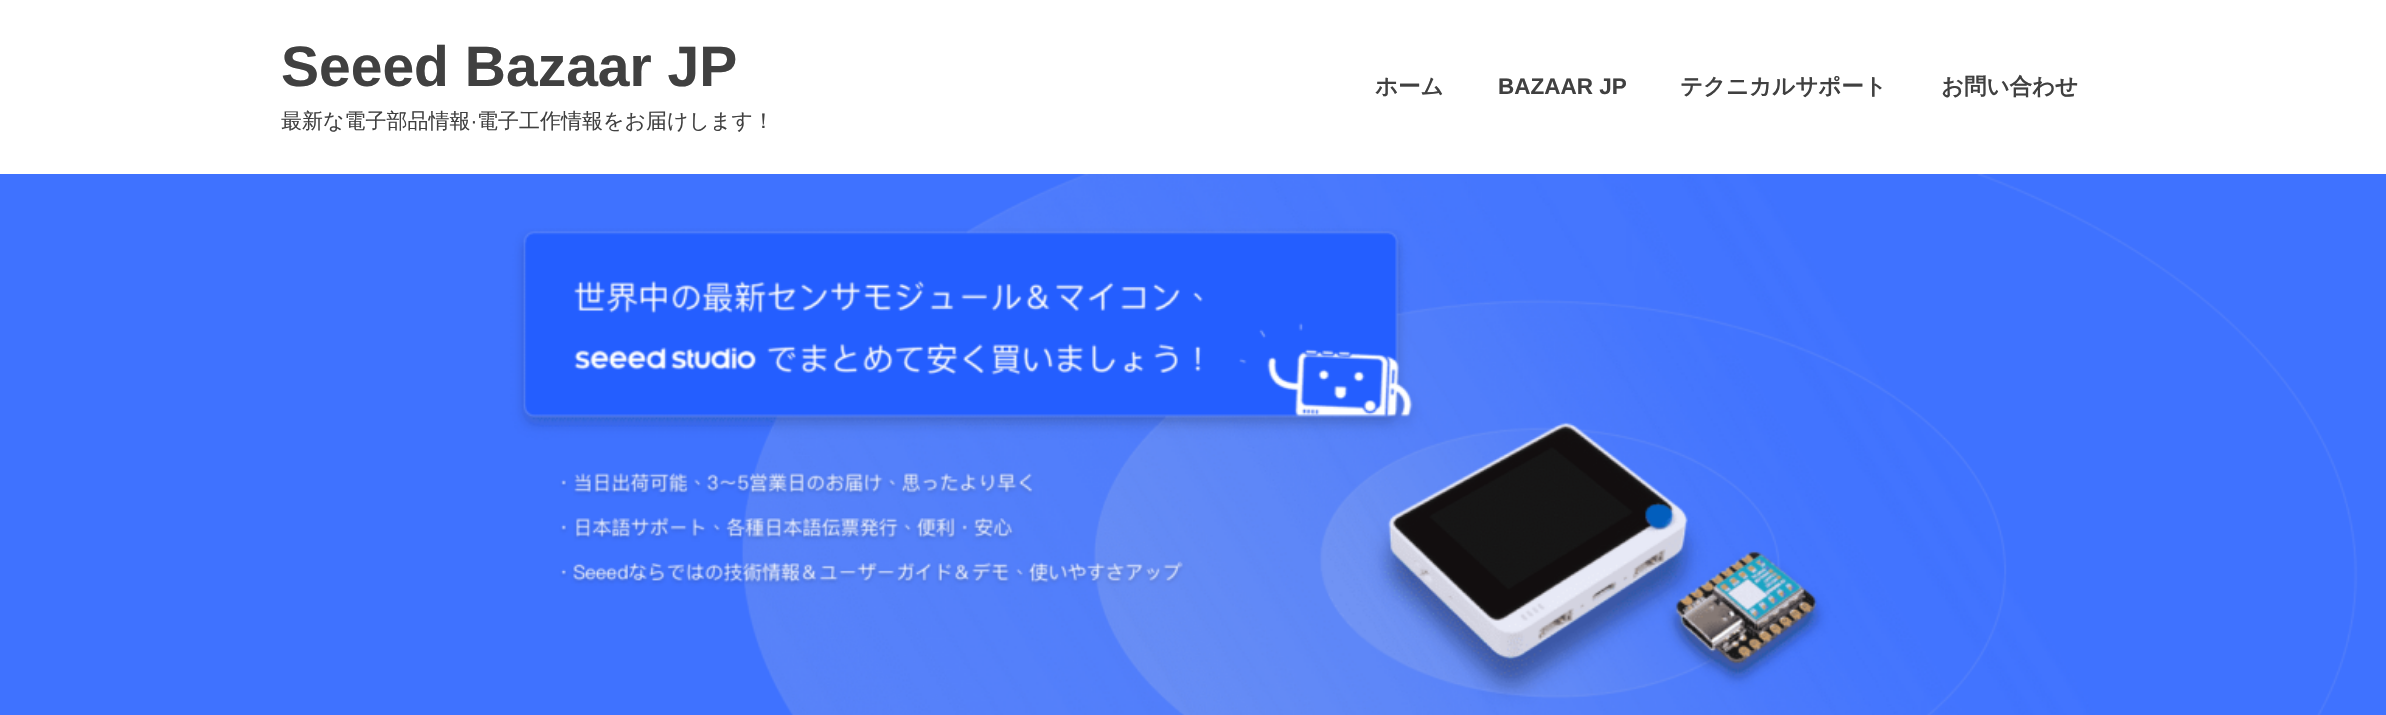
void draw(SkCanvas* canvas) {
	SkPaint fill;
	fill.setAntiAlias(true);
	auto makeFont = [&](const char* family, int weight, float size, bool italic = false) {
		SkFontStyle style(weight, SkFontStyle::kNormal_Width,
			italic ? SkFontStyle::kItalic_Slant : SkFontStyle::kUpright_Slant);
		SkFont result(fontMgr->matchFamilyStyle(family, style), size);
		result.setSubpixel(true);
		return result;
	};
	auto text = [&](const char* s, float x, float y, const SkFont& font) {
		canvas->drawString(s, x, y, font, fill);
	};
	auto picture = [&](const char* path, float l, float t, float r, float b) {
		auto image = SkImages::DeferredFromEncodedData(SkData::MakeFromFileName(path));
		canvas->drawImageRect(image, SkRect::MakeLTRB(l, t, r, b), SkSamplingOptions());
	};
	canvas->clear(0xFFFFFFFF);
	picture("image0.png", 0, 174, 2386, 715);
	auto font1 = makeFont("Liberation Sans", 700, 57);
	fill.setColor(0xFF404040);
	text("Seeed Bazaar JP", 281, 86, font1);
	auto font2 = makeFont("WenQuanYi Zen Hei", 500, 21);
	text("最新な電子部品情報", 281, 128, font2);
	auto font3 = makeFont("Liberation Sans", 400, 21);
	text("∙", 471, 128, font3);
	text("電子工作情報をお届けします！", 477, 128, font2);
	auto font4 = makeFont("WenQuanYi Zen Hei", 700, 22.5f);
	text("ホーム", 1375, 94, font4);
	auto font5 = makeFont("Liberation Sans", 700, 22.5f);
	text("BAZAAR JP", 1498, 94, font5);
	text("テクニカルサポート", 1680, 94, font4);
	text("お問い合わせ", 1941, 94, font4);
}
